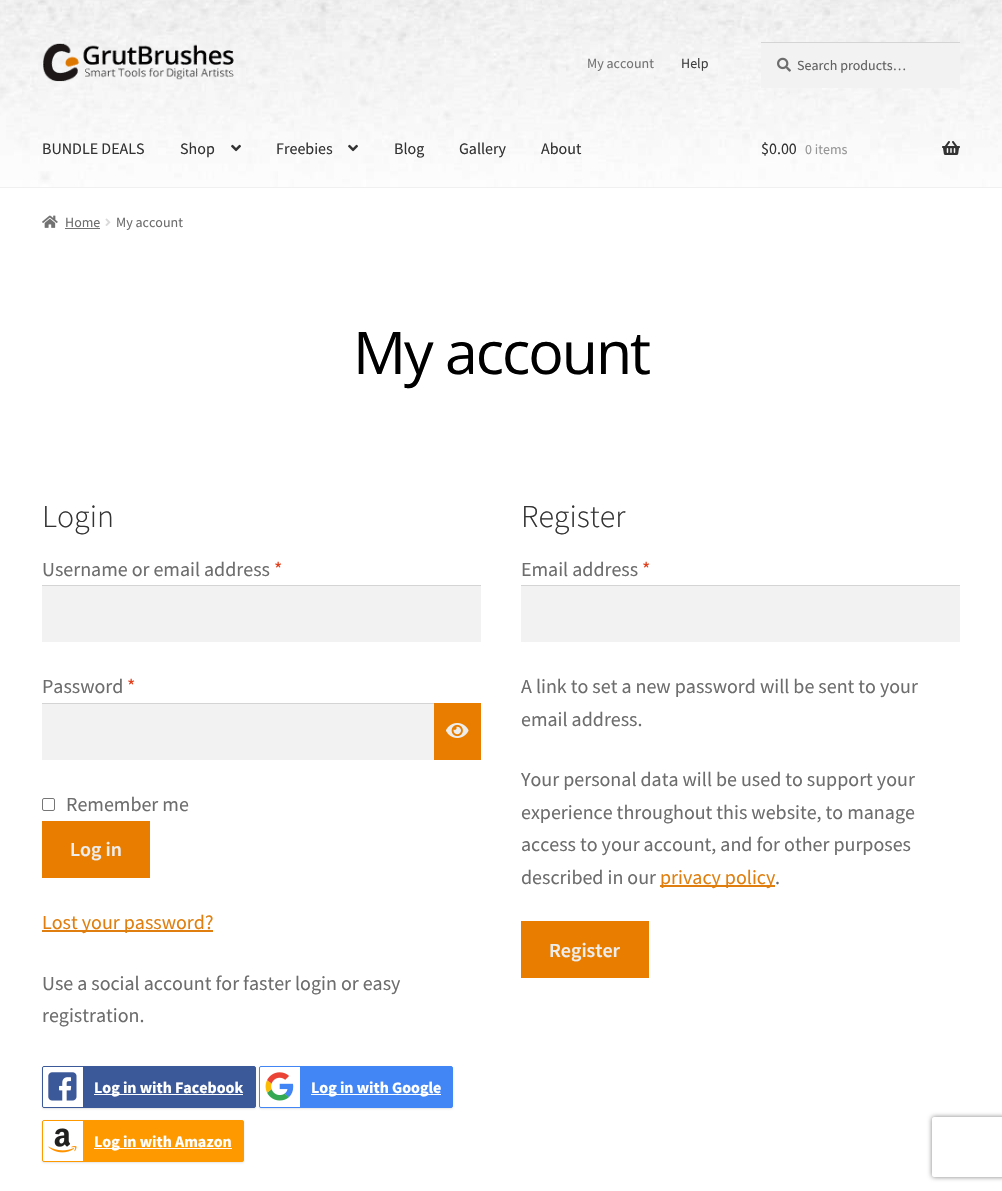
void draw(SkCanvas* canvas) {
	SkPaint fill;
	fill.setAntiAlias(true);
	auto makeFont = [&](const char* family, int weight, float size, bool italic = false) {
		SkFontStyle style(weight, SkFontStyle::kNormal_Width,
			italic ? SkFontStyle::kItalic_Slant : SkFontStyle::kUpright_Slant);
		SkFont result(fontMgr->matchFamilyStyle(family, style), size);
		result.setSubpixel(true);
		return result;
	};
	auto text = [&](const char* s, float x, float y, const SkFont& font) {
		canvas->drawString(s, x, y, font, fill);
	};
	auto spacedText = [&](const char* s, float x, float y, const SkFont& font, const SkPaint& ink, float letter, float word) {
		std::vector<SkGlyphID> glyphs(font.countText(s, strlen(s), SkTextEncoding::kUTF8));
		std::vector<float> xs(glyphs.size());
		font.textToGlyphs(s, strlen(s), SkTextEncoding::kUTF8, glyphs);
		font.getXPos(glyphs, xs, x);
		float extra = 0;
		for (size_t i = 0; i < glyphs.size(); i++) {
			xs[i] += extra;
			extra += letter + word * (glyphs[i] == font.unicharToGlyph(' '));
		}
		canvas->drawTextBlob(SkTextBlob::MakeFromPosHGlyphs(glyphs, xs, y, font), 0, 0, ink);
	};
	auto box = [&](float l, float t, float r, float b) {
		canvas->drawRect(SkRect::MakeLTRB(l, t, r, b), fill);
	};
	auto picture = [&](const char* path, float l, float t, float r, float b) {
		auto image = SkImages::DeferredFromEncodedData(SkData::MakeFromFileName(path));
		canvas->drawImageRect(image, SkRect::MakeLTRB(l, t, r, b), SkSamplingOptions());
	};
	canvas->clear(0xFFFFFFFF);
	picture("image0.png", 0, 0, 1002, 187);
	fill.setColor(0xFFF0F0F0);
	box(0, 187, 1002, 188);
	picture("image1.png", 42, 43, 234, 82);
	fill.setColor(0xFFF2F2F2);
	box(761, 43, 960, 88);
	picture("image2.png", 777, 57, 791, 72);
	fill.setColor(0xFFD4D4D4);
	box(761, 42, 960, 43);
	picture("image3.png", 231, 144, 241, 152);
	picture("image4.png", 348, 144, 358, 152);
	picture("image5.png", 942, 141, 960, 155);
	picture("image6.png", 42, 215, 58, 228);
	fill.setColor(0xFF727272);
	box(65, 228, 100, 229);
	picture("image7.png", 105, 218, 111, 226);
	fill.setColor(0xFFF2F2F2);
	box(42, 586, 481, 642);
	fill.setColor(0xFFD4D4D4);
	box(42, 585, 481, 586);
	fill.setColor(0xFFF2F2F2);
	box(42, 704, 434, 760);
	fill.setColor(0xFFD4D4D4);
	box(42, 703, 434, 704);
	fill.setColor(0xFFE87D00);
	box(434, 703, 481, 760);
	picture("image8.png", 446, 723, 469, 738);
	fill.setStyle(SkPaint::kStroke_Style);
	fill.setStrokeWidth(1);
	fill.setColor(0xFF767676);
	canvas->drawRoundRect(SkRect::MakeLTRB(42.5f, 798.5f, 54.5f, 810.5f), 1.5f, 1.5f, fill);
	fill.setStyle(SkPaint::kFill_Style);
	fill.setColor(0xFFE87D00);
	box(42, 821, 150, 878);
	fill.setColor(0xFFE07F0F);
	box(42, 930, 213, 932);
	fill.setColor(0x1A000000);
	fill.setMaskFilter(SkMaskFilter::MakeBlur(kNormal_SkBlurStyle, 1));
	canvas->drawRoundRect(SkRect::MakeLTRB(42, 1067, 256, 1109), 2, 2, fill);
	fill.setMaskFilter(nullptr);
	fill.setColor(0xFF3B5998);
	canvas->drawRoundRect(SkRect::MakeLTRB(42.5f, 1066.5f, 255.5f, 1107.5f), 1.5f, 1.5f, fill);
	fill.setStyle(SkPaint::kStroke_Style);
	canvas->drawRoundRect(SkRect::MakeLTRB(42.5f, 1066.5f, 255.5f, 1107.5f), 1.5f, 1.5f, fill);
	fill.setStyle(SkPaint::kFill_Style);
	fill.setColor(0xFFFFFFFF);
	canvas->drawPath(SkPathBuilder().moveTo(44, 1067).lineTo(83, 1067).lineTo(83, 1107).lineTo(44, 1107).cubicTo(43.5f, 1107, 43, 1106.5f, 43, 1106).lineTo(43, 1068).cubicTo(43, 1067.5f, 43.5f, 1067, 44, 1067).close().detach(), fill);
	picture("image9.png", 48, 1072, 77, 1101);
	box(94, 1094, 243, 1095);
	fill.setColor(0x1A000000);
	fill.setMaskFilter(SkMaskFilter::MakeBlur(kNormal_SkBlurStyle, 1));
	canvas->drawRoundRect(SkRect::MakeLTRB(259, 1067, 453, 1109), 2, 2, fill);
	fill.setMaskFilter(nullptr);
	fill.setColor(0xFF4285F4);
	canvas->drawRoundRect(SkRect::MakeLTRB(259.5f, 1066.5f, 452.5f, 1107.5f), 1.5f, 1.5f, fill);
	fill.setStyle(SkPaint::kStroke_Style);
	canvas->drawRoundRect(SkRect::MakeLTRB(259.5f, 1066.5f, 452.5f, 1107.5f), 1.5f, 1.5f, fill);
	fill.setStyle(SkPaint::kFill_Style);
	fill.setColor(0xFFFFFFFF);
	canvas->drawPath(SkPathBuilder().moveTo(261, 1067).lineTo(300, 1067).lineTo(300, 1107).lineTo(261, 1107).cubicTo(260.5f, 1107, 260, 1106.5f, 260, 1106).lineTo(260, 1068).cubicTo(260, 1067.5f, 260.5f, 1067, 261, 1067).close().detach(), fill);
	picture("image10.png", 265, 1072, 294, 1101);
	box(311, 1094, 441, 1095);
	fill.setColor(0x1A000000);
	fill.setMaskFilter(SkMaskFilter::MakeBlur(kNormal_SkBlurStyle, 1));
	canvas->drawRoundRect(SkRect::MakeLTRB(42, 1121, 244, 1163), 2, 2, fill);
	fill.setMaskFilter(nullptr);
	fill.setColor(0xFFFF9900);
	canvas->drawRoundRect(SkRect::MakeLTRB(42.5f, 1120.5f, 243.5f, 1161.5f), 1.5f, 1.5f, fill);
	fill.setStyle(SkPaint::kStroke_Style);
	canvas->drawRoundRect(SkRect::MakeLTRB(42.5f, 1120.5f, 243.5f, 1161.5f), 1.5f, 1.5f, fill);
	fill.setStyle(SkPaint::kFill_Style);
	fill.setColor(0xFFFFFFFF);
	canvas->drawPath(SkPathBuilder().moveTo(44, 1121).lineTo(83, 1121).lineTo(83, 1161).lineTo(44, 1161).cubicTo(43.5f, 1161, 43, 1160.5f, 43, 1160).lineTo(43, 1122).cubicTo(43, 1121.5f, 43.5f, 1121, 44, 1121).close().detach(), fill);
	picture("image11.png", 48, 1128, 77, 1153);
	box(94, 1148, 232, 1149);
	fill.setColor(0xFFF2F2F2);
	box(521, 586, 960, 642);
	fill.setColor(0xFFD4D4D4);
	box(521, 585, 960, 586);
	fill.setColor(0xFFE07F0F);
	box(660, 885, 775, 887);
	fill.setColor(0xFFE87D00);
	box(521, 921, 649, 978);
	canvas->save();
	canvas->clipPath(SkPathBuilder(SkPathFillType::kEvenOdd).moveTo(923, 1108).lineTo(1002, 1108).lineTo(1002, 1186).lineTo(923, 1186).close().moveTo(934, 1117).lineTo(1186, 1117).cubicTo(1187, 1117, 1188, 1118, 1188, 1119).lineTo(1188, 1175).cubicTo(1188, 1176, 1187, 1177, 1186, 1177).lineTo(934, 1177).cubicTo(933, 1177, 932, 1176, 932, 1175).lineTo(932, 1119).cubicTo(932, 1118, 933, 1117, 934, 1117).close().detach(), true);
	fill.setColor(0xFF808080);
	fill.setMaskFilter(SkMaskFilter::MakeBlur(kNormal_SkBlurStyle, 2.5f));
	canvas->drawRoundRect(SkRect::MakeLTRB(932, 1117, 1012, 1177), 2, 2, fill);
	fill.setMaskFilter(nullptr);
	canvas->restore();
	auto font1 = makeFont("Source Sans Pro", 400, 14);
	fill.setColor(0xFF747474);
	text("My account", 587, 68, font1);
	fill.setColor(0xFF404040);
	text("Help", 681, 68, font1);
	fill.setColor(0xFF616161);
	text("Search products…", 797, 70, font1);
	auto font2 = makeFont("Source Sans Pro", 400, 16);
	fill.setColor(0xFF333333);
	text("BUNDLE DEALS", 42, 154, font2);
	text("Shop", 180, 154, font2);
	text("Freebies", 276, 154, font2);
	text("Blog", 394, 154, font2);
	text("Gallery", 459, 154, font2);
	text("About", 541, 154, font2);
	text("$0.00", 761, 154, font2);
	fill.setColor(0xFF969696);
	text("0 items", 805, 154, font1);
	fill.setColor(0xFF6D6D6D);
	text("Home", 65, 227, font1);
	text("My account", 116, 227, font1);
	auto font3 = makeFont("Open Sans", 400, 59);
	fill.setColor(0xFF000000);
	spacedText("My account", 353, 374, font3, fill, -2, 0);
	auto font4 = makeFont("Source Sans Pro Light", 300, 32);
	fill.setColor(0xFF333333);
	text("Login", 42, 527, font4);
	auto font5 = makeFont("Source Sans Pro", 400, 20);
	fill.setColor(0xFF6D6D6D);
	text("Username or email address", 42, 576, font5);
	fill.setColor(0xFFE2401C);
	text("*", 274, 576, font5);
	fill.setColor(0xFF6D6D6D);
	text("Password", 42, 693, font5);
	fill.setColor(0xFFE2401C);
	text("*", 127, 693, font5);
	fill.setColor(0xFF6D6D6D);
	text("Remember me", 66, 811, font5);
	auto font6 = makeFont("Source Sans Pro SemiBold", 600, 20);
	fill.setColor(0xFFEDEDED);
	text("Log in", 70, 856, font6);
	fill.setColor(0xFFE07F0F);
	text("Lost your password?", 42, 929, font5);
	fill.setColor(0xFF6D6D6D);
	text("Use a social account for faster login or easy", 42, 990, font5);
	text("registration.", 42, 1022, font5);
	auto font7 = makeFont("Source Sans Pro", 700, 16);
	fill.setColor(0xFFFFFFFF);
	text("Log in with Facebook", 94, 1093, font7);
	text("Log in with Google", 311, 1093, font7);
	text("Log in with Amazon", 94, 1147, font7);
	fill.setColor(0xFF333333);
	text("Register", 521, 527, font4);
	fill.setColor(0xFF6D6D6D);
	text("Email address", 521, 576, font5);
	fill.setColor(0xFFE2401C);
	text("*", 642, 576, font5);
	fill.setColor(0xFF6D6D6D);
	text("A link to set a new password will be sent to your", 521, 693, font5);
	text("email address.", 521, 726, font5);
	text("Your personal data will be used to support your", 521, 786, font5);
	text("experience throughout this website, to manage", 521, 819, font5);
	text("access to your account, and for other purposes", 521, 851, font5);
	text("described in our", 521, 884, font5);
	fill.setColor(0xFFE07F0F);
	text("privacy policy", 660, 884, font5);
	fill.setColor(0xFF6D6D6D);
	text(".", 775, 884, font5);
	fill.setColor(0xFFEDEDED);
	text("Register", 549, 957, font6);
}
